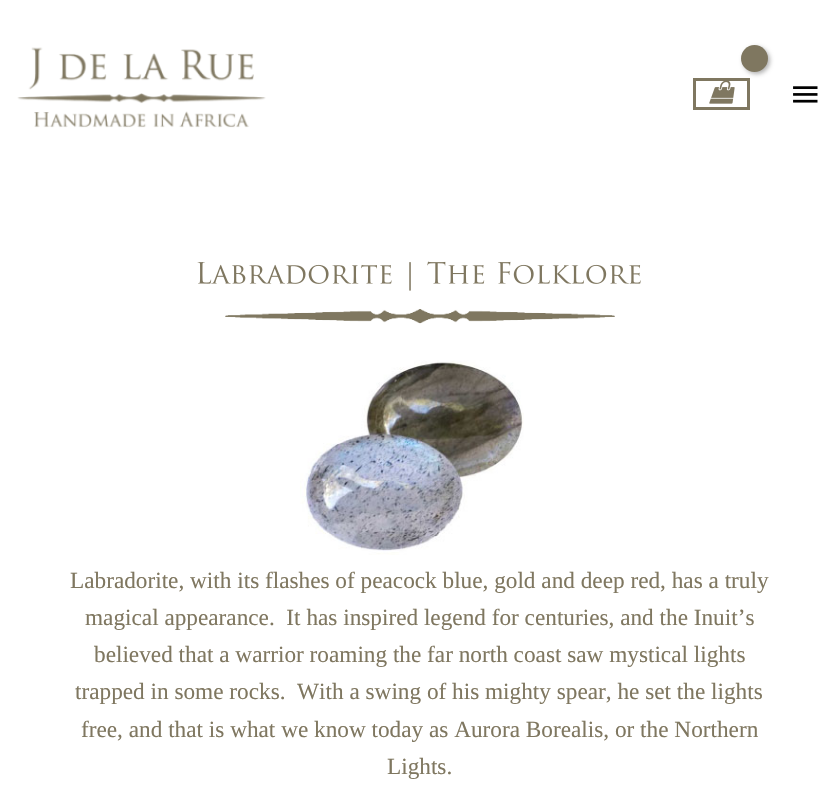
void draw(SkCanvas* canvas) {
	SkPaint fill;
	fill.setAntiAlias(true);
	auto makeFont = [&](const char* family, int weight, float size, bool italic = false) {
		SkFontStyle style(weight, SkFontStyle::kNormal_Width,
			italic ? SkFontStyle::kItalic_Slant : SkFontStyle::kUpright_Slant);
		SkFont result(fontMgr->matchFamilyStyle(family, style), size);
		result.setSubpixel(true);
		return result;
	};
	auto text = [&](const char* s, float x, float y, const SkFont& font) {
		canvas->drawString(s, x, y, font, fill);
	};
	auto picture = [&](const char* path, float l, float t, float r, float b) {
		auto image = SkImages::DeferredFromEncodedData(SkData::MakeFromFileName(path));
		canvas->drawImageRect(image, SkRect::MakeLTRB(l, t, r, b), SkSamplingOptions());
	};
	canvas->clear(0xFFFFFFFF);
	picture("image0.png", 17, 47, 266, 128);
	fill.setStyle(SkPaint::kStroke_Style);
	fill.setStrokeWidth(3);
	fill.setColor(0xFF7F7760);
	canvas->drawRect(SkRect::MakeLTRB(694.5f, 79.5f, 748.5f, 108.5f), fill);
	fill.setStyle(SkPaint::kFill_Style);
	fill.setColor(0x4D000000);
	fill.setMaskFilter(SkMaskFilter::MakeBlur(kNormal_SkBlurStyle, 2));
	canvas->drawRoundRect(SkRect::MakeLTRB(743, 47, 770, 74), 13.5f, 13.5f, fill);
	fill.setMaskFilter(nullptr);
	fill.setColor(0xFF7F7760);
	canvas->drawCircle(754.5f, 58.5f, 13.5f, fill);
	picture("image1.png", 709, 81, 735, 104);
	picture("image2.png", 793, 86, 818, 103);
	picture("image3.png", 197, 261, 641, 291);
	picture("image4.png", 225, 309, 615, 324);
	picture("image5.png", 300, 360, 524, 555);
	auto font1 = makeFont("Liberation Serif", 400, 23.25f);
	text("Labradorite, with its flashes of peacock blue, gold and deep red, has a truly", 70, 588, font1);
	text("magical appearance.  It has inspired legend for centuries, and the Inuit’s", 85, 625, font1);
	text("believed that a warrior roaming the far north coast saw mystical lights", 94, 662, font1);
	text("trapped in some rocks.  With a swing of his mighty spear, he set the lights", 75, 699, font1);
	text("free, and that is what we know today as Aurora Borealis, or the Northern", 81, 737, font1);
	text("Lights.", 387, 774, font1);
}
